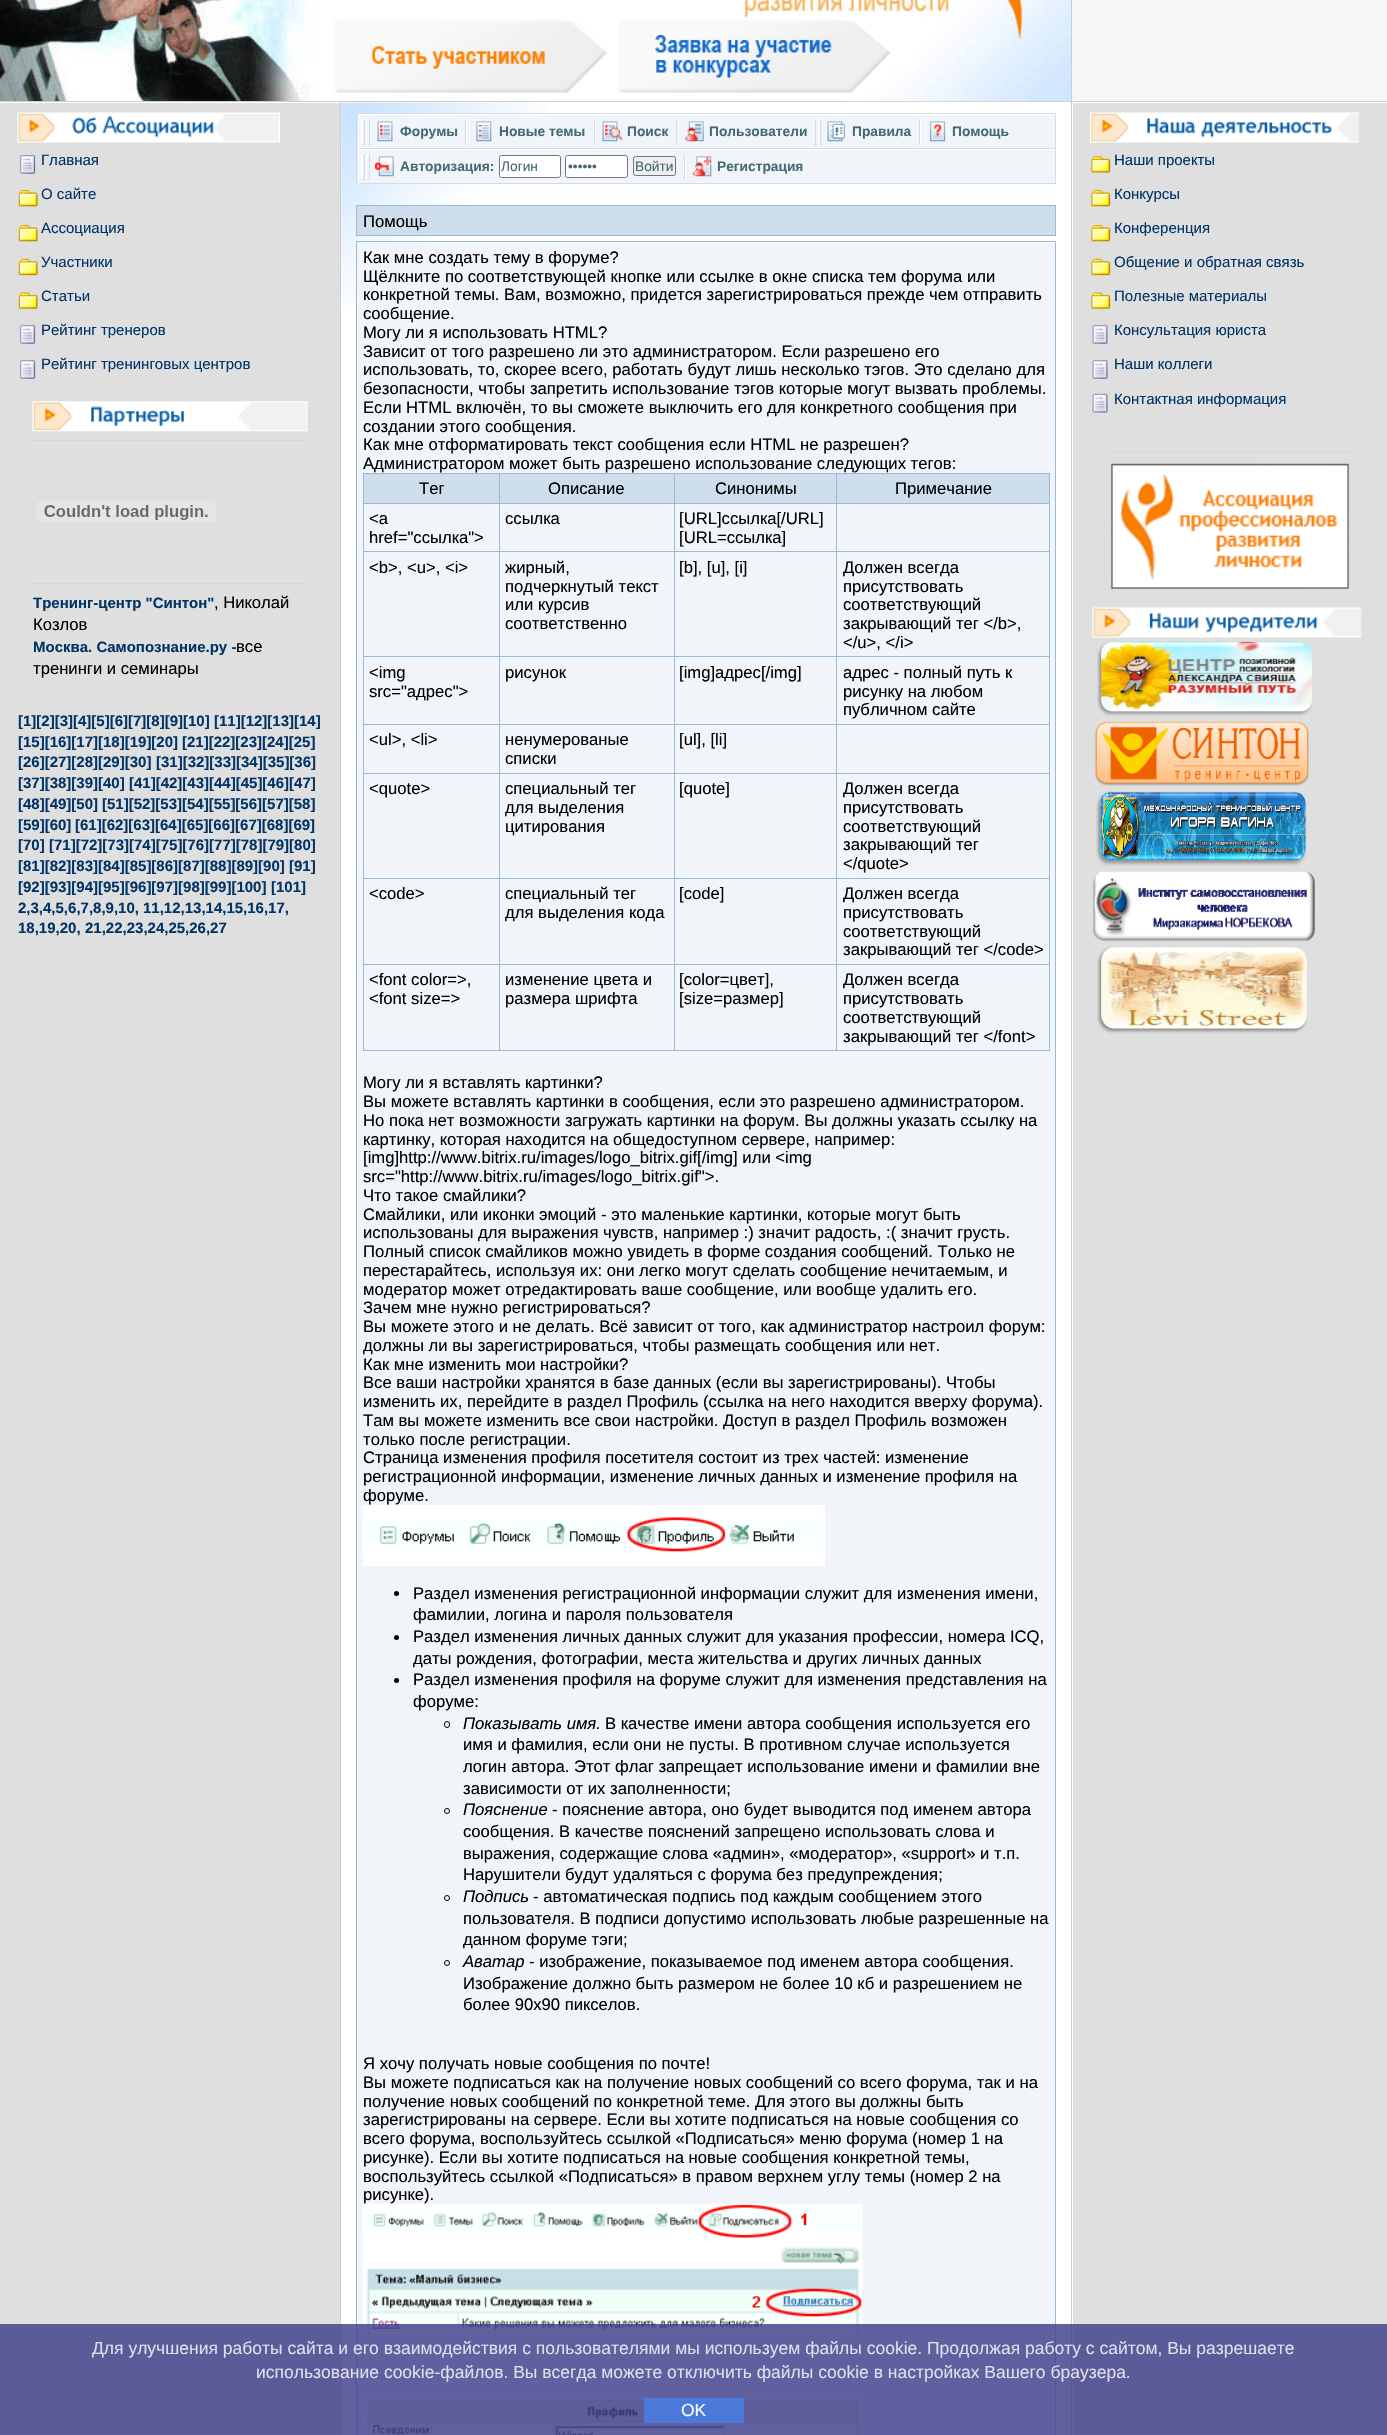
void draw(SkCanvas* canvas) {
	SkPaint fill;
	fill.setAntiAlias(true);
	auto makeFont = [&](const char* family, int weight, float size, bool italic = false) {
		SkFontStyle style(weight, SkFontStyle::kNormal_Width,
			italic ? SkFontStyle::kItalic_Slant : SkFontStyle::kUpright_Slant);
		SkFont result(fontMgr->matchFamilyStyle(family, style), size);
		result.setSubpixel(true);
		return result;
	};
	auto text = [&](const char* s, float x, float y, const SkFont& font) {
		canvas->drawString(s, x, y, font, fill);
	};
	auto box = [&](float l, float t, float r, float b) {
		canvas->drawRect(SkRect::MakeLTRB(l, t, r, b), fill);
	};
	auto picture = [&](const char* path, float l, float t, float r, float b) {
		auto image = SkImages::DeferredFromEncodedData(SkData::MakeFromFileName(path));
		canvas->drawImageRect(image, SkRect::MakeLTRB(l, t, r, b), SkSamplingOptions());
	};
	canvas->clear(0xFFFFFFFF);
	picture("image0.png", 0, 0, 608, 101);
	fill.setColor(0xFFCCCCCC);
	box(340, 101, 341, 2435);
	box(1071, 101, 1072, 2435);
	box(0, 101, 1387, 102);
	picture("image1.png", 743, 0, 1073, 102);
	picture("image2.png", 618, 20, 891, 93);
	fill.setColor(0xFFF6F6F6);
	box(1072, 0, 1387, 101);
	fill.setColor(0xFFCCCCCC);
	box(1071, 0, 1072, 101);
	fill.setColor(0xFFDFDFDF);
	box(0, 103, 340, 2435);
	picture("image3.png", 17, 112, 280, 143);
	picture("image4.png", 19, 154, 36, 174);
	picture("image5.png", 18, 189, 38, 207);
	picture("image5.png", 18, 224, 38, 242);
	picture("image6.png", 18, 258, 38, 276);
	picture("image7.png", 18, 292, 38, 309);
	picture("image4.png", 19, 324, 36, 344);
	picture("image4.png", 19, 359, 36, 379);
	picture("image8.png", 32, 401, 308, 432);
	fill.setColor(0xFFD5D5D5);
	box(33, 440, 308, 441);
	picture("image9.png", 36, 500, 216, 522);
	box(33, 583, 308, 584);
	picture("image10.png", 341, 102, 549, 306);
	fill.setColor(0xFFCEDEEC);
	box(356, 113, 1056, 114);
	box(356, 113, 357, 184);
	fill.setColor(0xFFF1F5FA);
	box(359, 115, 1055, 148);
	fill.setColor(0xFFFFFFFF);
	box(358, 114, 549, 115);
	fill.setColor(0xFFCEDEEC);
	box(1055, 114, 1056, 184);
	box(358, 148, 1056, 149);
	fill.setColor(0xFFFFFFFF);
	box(358, 114, 359, 149);
	box(361, 119, 365, 120);
	fill.setColor(0xFFCEDEEC);
	box(364, 119, 365, 145);
	box(361, 144, 365, 145);
	fill.setColor(0xFFFFFFFF);
	box(361, 119, 362, 145);
	box(366, 119, 370, 120);
	fill.setColor(0xFFCEDEEC);
	box(369, 119, 370, 145);
	box(366, 144, 370, 145);
	fill.setColor(0xFFFFFFFF);
	box(366, 119, 367, 145);
	picture("image11.png", 377, 121, 393, 142);
	box(466, 119, 467, 145);
	fill.setColor(0xFFCEDEEC);
	box(465, 119, 466, 145);
	picture("image12.png", 476, 121, 492, 142);
	fill.setColor(0xFFFFFFFF);
	box(595, 119, 596, 145);
	fill.setColor(0xFFCEDEEC);
	box(594, 119, 595, 145);
	picture("image13.png", 602, 121, 623, 142);
	fill.setColor(0xFFFFFFFF);
	box(678, 119, 679, 145);
	fill.setColor(0xFFCEDEEC);
	box(676, 119, 677, 145);
	picture("image14.png", 685, 121, 704, 142);
	fill.setColor(0xFFFFFFFF);
	box(813, 119, 817, 120);
	fill.setColor(0xFFCEDEEC);
	box(815, 119, 816, 145);
	box(813, 144, 817, 145);
	fill.setColor(0xFFFFFFFF);
	box(813, 119, 814, 145);
	box(818, 119, 822, 120);
	fill.setColor(0xFFCEDEEC);
	box(820, 119, 821, 145);
	box(818, 144, 822, 145);
	fill.setColor(0xFFFFFFFF);
	box(818, 119, 819, 145);
	picture("image15.png", 827, 121, 845, 142);
	box(920, 119, 921, 145);
	fill.setColor(0xFFCEDEEC);
	box(919, 119, 920, 145);
	picture("image16.png", 929, 121, 946, 142);
	fill.setColor(0xFFF1F5FA);
	box(359, 150, 1055, 183);
	fill.setColor(0xFFFFFFFF);
	box(358, 149, 516, 150);
	fill.setColor(0xFFCEDEEC);
	box(358, 183, 1056, 184);
	fill.setColor(0xFFFFFFFF);
	box(358, 149, 359, 184);
	box(361, 154, 365, 155);
	fill.setColor(0xFFCEDEEC);
	box(364, 154, 365, 180);
	box(361, 179, 365, 180);
	fill.setColor(0xFFFFFFFF);
	box(361, 154, 362, 180);
	box(366, 154, 370, 155);
	fill.setColor(0xFFCEDEEC);
	box(369, 154, 370, 180);
	box(366, 179, 370, 180);
	fill.setColor(0xFFFFFFFF);
	box(366, 154, 367, 180);
	picture("image17.png", 375, 156, 394, 177);
	canvas->drawRoundRect(SkRect::MakeLTRB(499.5f, 155.5f, 560.5f, 177.5f), 2, 2, fill);
	fill.setStyle(SkPaint::kStroke_Style);
	fill.setStrokeWidth(1);
	fill.setColor(0xFF767676);
	canvas->drawRoundRect(SkRect::MakeLTRB(499.5f, 155.5f, 560.5f, 177.5f), 2, 2, fill);
	fill.setStyle(SkPaint::kFill_Style);
	fill.setColor(0xFFFFFFFF);
	canvas->drawRoundRect(SkRect::MakeLTRB(565.5f, 155.5f, 627.5f, 177.5f), 2, 2, fill);
	fill.setStyle(SkPaint::kStroke_Style);
	fill.setColor(0xFF767676);
	canvas->drawRoundRect(SkRect::MakeLTRB(565.5f, 155.5f, 627.5f, 177.5f), 2, 2, fill);
	fill.setStyle(SkPaint::kFill_Style);
	fill.setColor(0xFFEFEFEF);
	canvas->drawRoundRect(SkRect::MakeLTRB(633.5f, 156.5f, 675.5f, 175.5f), 2, 2, fill);
	fill.setStyle(SkPaint::kStroke_Style);
	fill.setColor(0xFF767676);
	canvas->drawRoundRect(SkRect::MakeLTRB(633.5f, 156.5f, 675.5f, 175.5f), 2, 2, fill);
	fill.setStyle(SkPaint::kFill_Style);
	fill.setColor(0xFFFFFFFF);
	box(685, 154, 686, 180);
	fill.setColor(0xFFCEDEEC);
	box(684, 154, 685, 180);
	picture("image18.png", 692, 156, 712, 177);
	canvas->drawRect(SkRect::MakeLTRB(356.5f, 205.5f, 1055.5f, 235.5f), fill);
	fill.setStyle(SkPaint::kStroke_Style);
	fill.setColor(0xFF99BAD7);
	canvas->drawRect(SkRect::MakeLTRB(356.5f, 205.5f, 1055.5f, 235.5f), fill);
	fill.setStyle(SkPaint::kFill_Style);
	box(356, 241, 1056, 242);
	box(1055, 241, 1056, 2435);
	box(356, 241, 357, 2435);
	fill.setColor(0xFFF1F5FA);
	box(358, 243, 1055, 2435);
	fill.setColor(0xFF99BAD7);
	box(363, 473, 1050, 474);
	box(1049, 473, 1050, 1051);
	box(363, 1050, 1050, 1051);
	box(363, 473, 364, 1051);
	fill.setColor(0xFFCEDEEC);
	box(364, 474, 499, 503);
	box(500, 474, 674, 503);
	fill.setColor(0xFF99BAD7);
	box(836, 503, 1050, 504);
	box(836, 551, 1050, 552);
	box(836, 656, 1050, 657);
	box(836, 724, 1050, 725);
	box(836, 773, 1050, 774);
	box(836, 878, 1050, 879);
	box(836, 964, 1050, 965);
	box(836, 964, 837, 1051);
	box(674, 964, 838, 965);
	box(836, 878, 837, 965);
	box(674, 878, 838, 879);
	box(836, 773, 837, 879);
	box(674, 773, 838, 774);
	box(836, 724, 837, 774);
	box(674, 724, 838, 725);
	box(836, 656, 837, 725);
	box(674, 656, 838, 657);
	box(836, 551, 837, 658);
	box(674, 551, 838, 552);
	box(836, 503, 837, 553);
	box(674, 503, 838, 504);
	box(674, 964, 675, 1051);
	box(499, 964, 675, 965);
	box(674, 878, 675, 965);
	box(499, 878, 675, 879);
	box(674, 773, 675, 879);
	box(499, 773, 675, 774);
	box(674, 724, 675, 774);
	box(499, 724, 675, 725);
	box(674, 656, 675, 725);
	box(499, 656, 675, 657);
	box(674, 551, 675, 658);
	box(499, 551, 675, 552);
	box(674, 503, 675, 553);
	box(499, 503, 675, 504);
	box(499, 964, 500, 1051);
	box(363, 964, 500, 965);
	box(499, 878, 500, 965);
	box(363, 878, 500, 879);
	box(499, 773, 500, 879);
	box(363, 773, 500, 774);
	box(499, 724, 500, 774);
	box(363, 724, 500, 725);
	box(499, 656, 500, 725);
	box(363, 656, 500, 657);
	box(499, 551, 500, 658);
	box(363, 551, 500, 552);
	box(499, 503, 500, 553);
	box(363, 503, 500, 504);
	box(499, 473, 500, 504);
	fill.setColor(0xFFCEDEEC);
	box(675, 474, 1049, 503);
	fill.setColor(0xFF99BAD7);
	box(674, 473, 675, 504);
	box(836, 473, 837, 504);
	picture("image19.png", 362, 1505, 825, 1566);
	fill.setColor(0xFF000000);
	canvas->drawCircle(396.5f, 1593.5f, 2.5f, fill);
	canvas->drawCircle(396.5f, 1637.5f, 2.5f, fill);
	canvas->drawCircle(396.5f, 1680.5f, 2.5f, fill);
	fill.setStyle(SkPaint::kStroke_Style);
	canvas->drawRoundRect(SkRect::MakeLTRB(444.5f, 1721.5f, 449.5f, 1727.5f), 2.5f, 2.5f, fill);
	canvas->drawCircle(447, 1811, 2.5f, fill);
	canvas->drawCircle(447, 1898, 2.5f, fill);
	canvas->drawCircle(447, 1963, 2.5f, fill);
	picture("image21.png", 362, 2394, 863, 2435);
	fill.setStyle(SkPaint::kFill_Style);
	fill.setColor(0xFFDFDFDF);
	box(1073, 103, 1387, 2435);
	picture("image22.png", 1090, 112, 1359, 143);
	picture("image23.png", 1091, 156, 1111, 173);
	picture("image24.png", 1091, 189, 1111, 207);
	picture("image24.png", 1091, 224, 1111, 242);
	picture("image25.png", 1091, 258, 1111, 276);
	picture("image26.png", 1091, 292, 1111, 309);
	picture("image27.png", 1092, 324, 1108, 344);
	picture("image27.png", 1092, 359, 1108, 379);
	picture("image28.png", 1092, 393, 1108, 413);
	fill.setColor(0xFFD5D5D5);
	box(1108, 451, 1353, 452);
	picture("image29.png", 1111, 463, 1349, 589);
	picture("image30.png", 1092, 607, 1362, 638);
	picture("image31.png", 1097, 641, 1313, 716);
	picture("image32.png", 1094, 721, 1309, 786);
	picture("image33.png", 1096, 791, 1307, 866);
	picture("image34.png", 1093, 871, 1315, 942);
	picture("image35.png", 1097, 946, 1308, 1034);
	auto font1 = makeFont("Liberation Sans", 400, 15);
	fill.setColor(0xFF003366);
	text("Главная", 41, 165, font1);
	text("О сайте", 41, 199, font1);
	text("Ассоциация", 41, 233, font1);
	text("Участники", 41, 267, font1);
	text("Статьи", 41, 301, font1);
	text("Рейтинг тренеров", 41, 335, font1);
	text("Рейтинг тренинговых центров", 41, 369, font1);
	auto font2 = makeFont("Liberation Sans", 700, 15);
	text("Тренинг-центр \"Синтон\"", 33, 608, font2);
	auto font3 = makeFont("Liberation Sans", 400, 16.65f);
	fill.setColor(0xFF000000);
	text(", Николай", 214, 608, font3);
	text("Козлов", 33, 630, font3);
	fill.setColor(0xFF003366);
	text("Москва. Самопознание.ру -", 33, 652, font2);
	fill.setColor(0xFF000000);
	text("все", 236, 652, font3);
	text("тренинги и семинары", 33, 674, font3);
	fill.setColor(0xFF003366);
	text("[1][2][3][4][5][6][7][8][9][10]", 18, 726, font2);
	text("[11][12][13][14]", 214, 726, font2);
	text("[15][16][17][18][19][20]", 18, 747, font2);
	text("[21][22][23][24][25]", 182, 747, font2);
	text("[26][27][28][29][30]", 18, 767, font2);
	text("[31][32][33][34][35][36]", 156, 767, font2);
	text("[37][38][39][40]", 18, 788, font2);
	text("[41][42][43][44][45][46][47]", 129, 788, font2);
	text("[48][49][50]", 18, 809, font2);
	text("[51][52][53][54][55][56][57][58]", 102, 809, font2);
	text("[59][60]", 18, 830, font2);
	text("[61][62][63][64][65][66][67][68][69]", 75, 830, font2);
	text("[70]", 18, 850, font2);
	text("[71][72][73][74][75][76][77][78][79][80]", 49, 850, font2);
	text("[81][82][83][84][85][86][87][88][89][90]", 18, 871, font2);
	text("[91]", 289, 871, font2);
	text("[92][93][94][95][96][97][98][99][100]", 18, 892, font2);
	text("[101]", 271, 892, font2);
	text("2,3,4,5,6,7,8,9,10,", 18, 913, font2);
	text("11,12,13,14,15,16,17,", 143, 913, font2);
	text("18,19,20,", 18, 933, font2);
	text("21,22,23,24,25,26,27", 85, 933, font2);
	auto font4 = makeFont("Liberation Sans", 700, 13.75f);
	fill.setColor(0xFF456A74);
	text("Форумы", 400, 136, font4);
	text("Новые темы", 499, 136, font4);
	text("Поиск", 627, 136, font4);
	text("Пользователи", 709, 136, font4);
	text("Правила", 852, 136, font4);
	text("Помощь", 952, 136, font4);
	text("Авторизация:", 400, 171, font4);
	auto font5 = makeFont("Liberation Sans", 400, 13.75f);
	text("Логин", 501, 171, font5);
	text("••••••", 568, 171, font5);
	text("Войти", 635, 171, font5);
	text("Регистрация", 717, 171, font4);
	fill.setColor(0xFF000000);
	text("Помощь", 363, 227, font3);
	text("Как мне создать тему в форуме?", 363, 263, font3);
	text("Щёлкните по соответствующей кнопке или ссылке в окне списка тем форума или", 363, 282, font3);
	text("конкретной темы. Вам, возможно, придется зарегистрироваться прежде чем отправить", 363, 300, font3);
	text("сообщение.", 363, 319, font3);
	text("Могу ли я использовать HTML?", 363, 338, font3);
	text("Зависит от того разрешено ли это администратором. Если разрешено его", 363, 357, font3);
	text("использовать, то, скорее всего, работать будут лишь несколько тэгов. Это сделано для", 363, 375, font3);
	text("безопасности, чтобы запретить использование тэгов которые могут вызвать проблемы.", 363, 394, font3);
	text("Если HTML включён, то вы сможете выключить его для конкретного сообщения при", 363, 413, font3);
	text("создании этого сообщения.", 363, 432, font3);
	text("Как мне отформатировать текст сообщения если HTML не разрешен?", 363, 450, font3);
	text("Администратором может быть разрешено использование следующих тегов:", 363, 469, font3);
	text("Тег", 419, 494, font3);
	text("Описание", 548, 494, font3);
	text("Синонимы", 715, 494, font3);
	text("Примечание", 895, 494, font3);
	text("<a", 369, 524, font3);
	text("href=\"ссылка\">", 369, 543, font3);
	text("ссылка", 505, 524, font3);
	text("[URL]ссылка[/URL]", 679, 524, font3);
	text("[URL=ссылка]", 679, 543, font3);
	text("<b>, <u>, <i>", 369, 573, font3);
	text("жирный,", 505, 573, font3);
	text("подчеркнутый текст", 505, 592, font3);
	text("или курсив", 505, 610, font3);
	text("соответственно", 505, 629, font3);
	text("[b], [u], [i]", 679, 573, font3);
	text("Должен всегда", 843, 573, font3);
	text("присутствовать", 843, 592, font3);
	text("соответствующий", 843, 610, font3);
	text("закрывающий тег </b>,", 843, 629, font3);
	text("</u>, </i>", 843, 648, font3);
	text("<img", 369, 678, font3);
	text("src=\"адрес\">", 369, 697, font3);
	text("рисунок", 505, 678, font3);
	text("[img]адрес[/img]", 679, 678, font3);
	text("адрес - полный путь к", 843, 678, font3);
	text("рисунку на любом", 843, 697, font3);
	text("публичном сайте", 843, 715, font3);
	text("<ul>, <li>", 369, 745, font3);
	text("ненумерованые", 505, 745, font3);
	text("списки", 505, 764, font3);
	text("[ul], [li]", 679, 745, font3);
	text("<quote>", 369, 794, font3);
	text("специальный тег", 505, 794, font3);
	text("для выделения", 505, 813, font3);
	text("цитирования", 505, 832, font3);
	text("[quote]", 679, 794, font3);
	text("Должен всегда", 843, 794, font3);
	text("присутствовать", 843, 813, font3);
	text("соответствующий", 843, 832, font3);
	text("закрывающий тег", 843, 850, font3);
	text("</quote>", 843, 869, font3);
	text("<code>", 369, 899, font3);
	text("специальный тег", 505, 899, font3);
	text("для выделения кода", 505, 918, font3);
	text("[code]", 679, 899, font3);
	text("Должен всегда", 843, 899, font3);
	text("присутствовать", 843, 918, font3);
	text("соответствующий", 843, 937, font3);
	text("закрывающий тег </code>", 843, 955, font3);
	text("<font color=>,", 369, 985, font3);
	text("<font size=>", 369, 1004, font3);
	text("изменение цвета и", 505, 985, font3);
	text("размера шрифта", 505, 1004, font3);
	text("[color=цвет],", 679, 985, font3);
	text("[size=размер]", 679, 1004, font3);
	text("Должен всегда", 843, 985, font3);
	text("присутствовать", 843, 1004, font3);
	text("соответствующий", 843, 1023, font3);
	text("закрывающий тег </font>", 843, 1042, font3);
	text("Могу ли я вставлять картинки?", 363, 1088, font3);
	text("Вы можете вставлять картинки в сообщения, если это разрешено администратором.", 363, 1107, font3);
	text("Но пока нет возможности загружать картинки на форум. Вы должны указать ссылку на", 363, 1126, font3);
	text("картинку, которая находится на общедоступном сервере, например:", 363, 1145, font3);
	text("[img]http://www.bitrix.ru/images/logo_bitrix.gif[/img] или <img", 363, 1163, font3);
	text("src=\"http://www.bitrix.ru/images/logo_bitrix.gif\">.", 363, 1182, font3);
	text("Что такое смайлики?", 363, 1201, font3);
	text("Смайлики, или иконки эмоций - это маленькие картинки, которые могут быть", 363, 1220, font3);
	text("использованы для выражения чувств, например :) значит радость, :( значит грусть.", 363, 1238, font3);
	text("Полный список смайликов можно увидеть в форме создания сообщений. Только не", 363, 1257, font3);
	text("перестарайтесь, используя их: они легко могут сделать сообщение нечитаемым, и", 363, 1276, font3);
	text("модератор может отредактировать ваше сообщение, или вообще удалить его.", 363, 1295, font3);
	text("Зачем мне нужно регистрироваться?", 363, 1313, font3);
	text("Вы можете этого и не делать. Всё зависит от того, как администратор настроил форум:", 363, 1332, font3);
	text("должны ли вы зарегистрироваться, чтобы размещать сообщения или нет.", 363, 1351, font3);
	text("Как мне изменить мои настройки?", 363, 1370, font3);
	text("Все ваши настройки хранятся в базе данных (если вы зарегистрированы). Чтобы", 363, 1388, font3);
	text("изменить их, перейдите в раздел Профиль (ссылка на него находится вверху форума).", 363, 1407, font3);
	text("Там вы можете изменить все свои настройки. Доступ в раздел Профиль возможен", 363, 1426, font3);
	text("только после регистрации.", 363, 1445, font3);
	text("Страница изменения профиля посетителя состоит из трех частей: изменение", 363, 1463, font3);
	text("регистрационной информации, изменение личных данных и изменение профиля на", 363, 1482, font3);
	text("форуме.", 363, 1501, font3);
	text("Раздел изменения регистрационной информации служит для изменения имени,", 413, 1599, font3);
	text("фамилии, логина и пароля пользователя", 413, 1620, font3);
	text("Раздел изменения личных данных служит для указания профессии, номера ICQ,", 413, 1642, font3);
	text("даты рождения, фотографии, места жительства и других личных данных", 413, 1664, font3);
	text("Раздел изменения профиля на форуме служит для изменения представления на", 413, 1685, font3);
	text("форуме:", 413, 1707, font3);
	auto font6 = makeFont("Liberation Sans", 400, 16.65f, true);
	text("Показывать имя.", 463, 1729, font6);
	text("В качестве имени автора сообщения используется его", 605, 1729, font3);
	text("имя и фамилия, если они не пусты. В противном случае используется", 463, 1750, font3);
	text("логин автора. Этот флаг запрещает использование имени и фамилии вне", 463, 1772, font3);
	text("зависимости от их заполненности;", 463, 1794, font3);
	text("Пояснение", 463, 1815, font6);
	text("- пояснение автора, оно будет выводится под именем автора", 552, 1815, font3);
	text("сообщения. В качестве пояснений запрещено использовать слова и", 463, 1837, font3);
	text("выражения, содержащие слова «админ», «модератор», «support» и т.п.", 463, 1859, font3);
	text("Нарушители будут удаляться с форума без предупреждения;", 463, 1880, font3);
	text("Подпись", 463, 1902, font6);
	text("- автоматическая подпись под каждым сообщением этого", 533, 1902, font3);
	text("пользователя. В подписи допустимо использовать любые разрешенные на", 463, 1924, font3);
	text("данном форуме тэги;", 463, 1945, font3);
	text("Аватар", 463, 1967, font6);
	text("- изображение, показываемое под именем автора сообщения.", 529, 1967, font3);
	text("Изображение должно быть размером не более 10 кб и разрешением не", 463, 1989, font3);
	text("более 90x90 пикселов.", 463, 2010, font3);
	text("Я хочу получать новые сообщения по почте!", 363, 2069, font3);
	text("Вы можете подписаться как на получение новых сообщений со всего форума, так и на", 363, 2088, font3);
	text("получение новых сообщений по конкретной теме. Для этого вы должны быть", 363, 2107, font3);
	text("зарегистрированы на сервере. Если вы хотите подписаться на новые сообщения со", 363, 2125, font3);
	text("всего форума, воспользуйтесь ссылкой «Подписаться» меню форума (номер 1 на", 363, 2144, font3);
	text("рисунке). Если вы хотите подписаться на новые сообщения конкретной темы,", 363, 2163, font3);
	text("воспользуйтесь ссылкой «Подписаться» в правом верхнем углу темы (номер 2 на", 363, 2182, font3);
	text("рисунке).", 363, 2200, font3);
	picture("image20.png", 362, 2203, 863, 2334);
	fill.setColor(0xFF003366);
	text("Наши проекты", 1114, 165, font1);
	text("Конкурсы", 1114, 199, font1);
	text("Конференция", 1114, 233, font1);
	text("Общение и обратная связь", 1114, 267, font1);
	text("Полезные материалы", 1114, 301, font1);
	text("Консультация юриста", 1114, 335, font1);
	text("Наши коллеги", 1114, 369, font1);
	text("Контактная информация", 1114, 404, font1);
	fill.setColor(0xCC3B3988);
	box(0, 2324, 1387, 2435);
	auto font7 = makeFont("Liberation Sans", 400, 17.5f);
	fill.setColor(0xFFDFDFEB);
	text("Для улучшения работы сайта и его взаимодействия с пользователями мы используем файлы cookie. Продолжая работу с сайтом, Вы разрешаете", 92, 2354, font7);
	text("использование cookie-файлов. Вы всегда можете отключить файлы cookie в настройках Вашего браузера.", 256, 2378, font7);
	fill.setColor(0xB84285F4);
	box(644, 2398, 744, 2423);
	fill.setColor(0xFFF9F9F7);
	text("OK", 681, 2416, font7);
}
